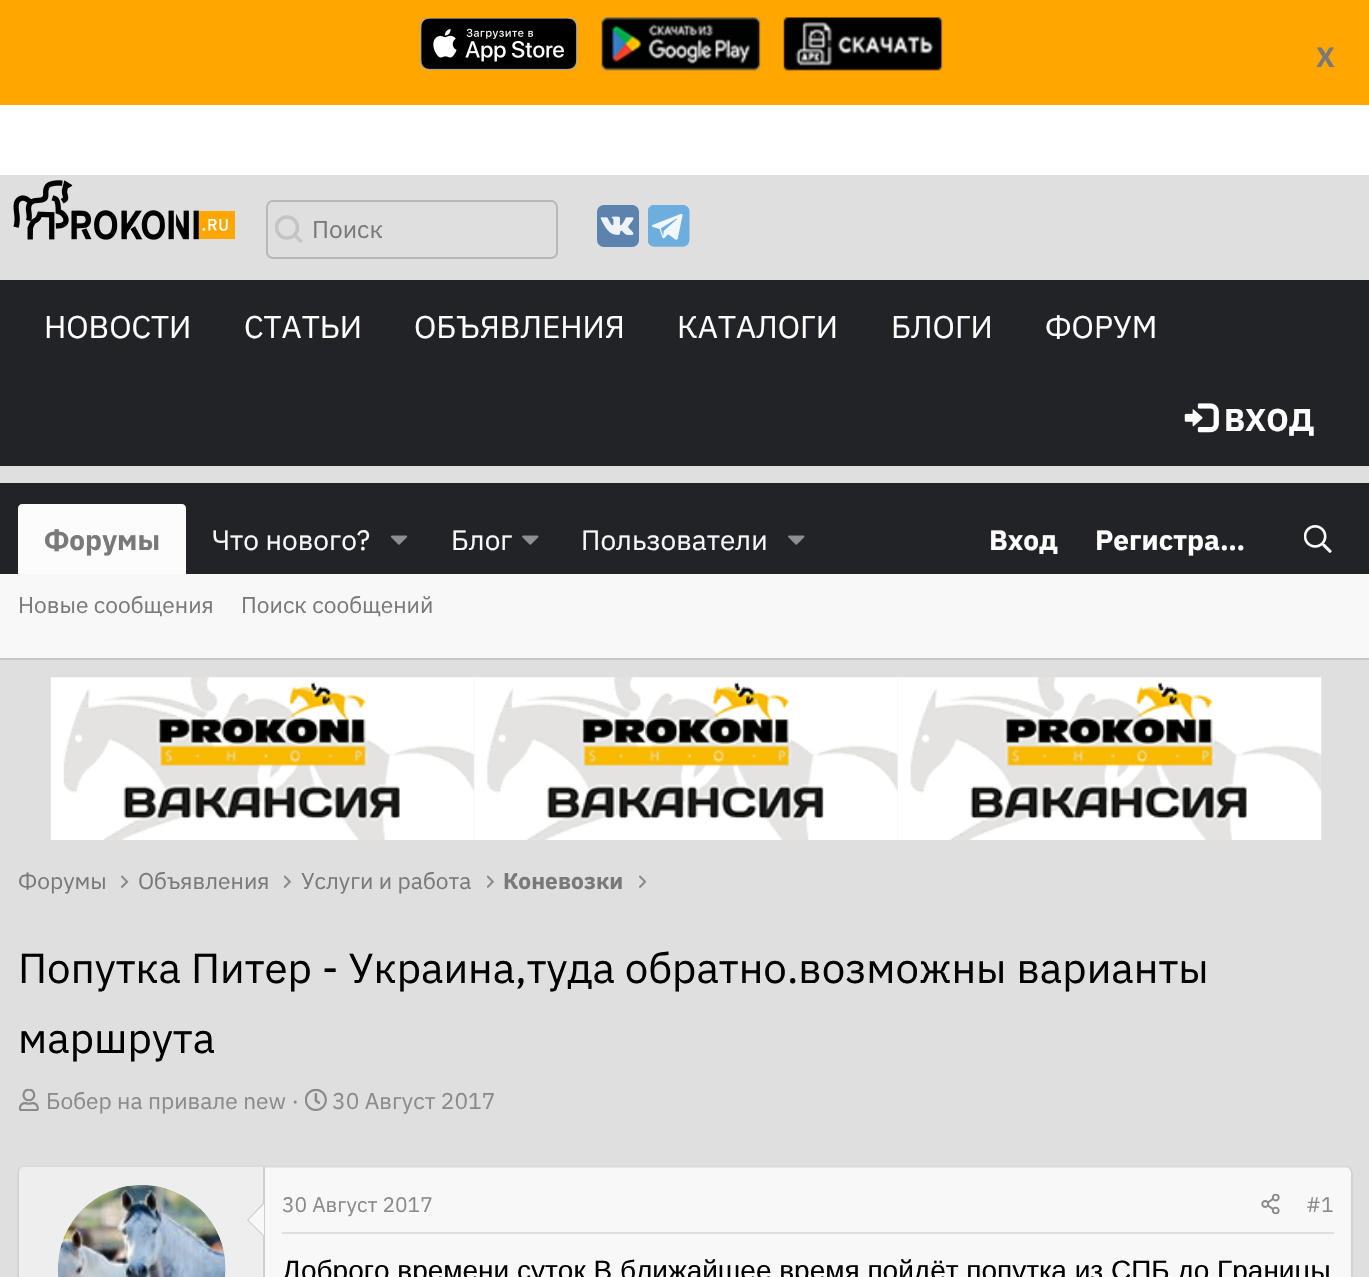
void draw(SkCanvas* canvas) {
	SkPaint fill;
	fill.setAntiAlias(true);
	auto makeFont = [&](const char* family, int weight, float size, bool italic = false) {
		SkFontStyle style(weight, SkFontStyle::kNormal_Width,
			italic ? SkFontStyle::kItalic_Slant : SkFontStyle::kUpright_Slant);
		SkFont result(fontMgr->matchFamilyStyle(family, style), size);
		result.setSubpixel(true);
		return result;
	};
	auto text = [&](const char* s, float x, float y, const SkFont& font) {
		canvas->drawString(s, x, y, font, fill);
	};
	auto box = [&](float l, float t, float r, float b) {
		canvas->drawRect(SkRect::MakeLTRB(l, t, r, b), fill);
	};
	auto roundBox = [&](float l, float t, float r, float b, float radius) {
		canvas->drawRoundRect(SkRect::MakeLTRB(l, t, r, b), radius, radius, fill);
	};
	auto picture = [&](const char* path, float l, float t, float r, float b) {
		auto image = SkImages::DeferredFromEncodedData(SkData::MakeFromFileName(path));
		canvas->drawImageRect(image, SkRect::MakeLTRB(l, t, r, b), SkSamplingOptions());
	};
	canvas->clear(0xFFFFFFFF);
	fill.setColor(0xFFFFA600);
	box(0, 0, 1369, 105);
	picture("image0.png", 420, 18, 578, 70);
	picture("image1.png", 601, 17, 761, 71);
	picture("image2.png", 783, 17, 943, 71);
	fill.setColor(0xFFDFDFDF);
	box(0, 175, 1369, 1277);
	picture("image3.png", 13, 180, 235, 240);
	fill.setColor(0xFFC4C4C4);
	canvas->drawPath(SkPathBuilder(SkPathFillType::kEvenOdd).moveTo(300.5f, 243).lineTo(293.5f, 236.5f).lineTo(296, 234).lineTo(303, 241).close().detach(), fill);
	canvas->save();
	canvas->clipRect(SkRect::MakeLTRB(275, 215, 303, 243));
	fill.setStyle(SkPaint::kStroke_Style);
	fill.setStrokeWidth(3.5f);
	canvas->drawCircle(287, 227.5f, 10.5f, fill);
	canvas->restore();
	fill.setStrokeWidth(2);
	fill.setColor(0xFFB8B8B8);
	canvas->drawRoundRect(SkRect::MakeLTRB(267, 201, 557, 258), 6, 6, fill);
	picture("image4.png", 597, 205, 639, 247);
	picture("image5.png", 648, 205, 690, 247);
	fill.setStyle(SkPaint::kFill_Style);
	fill.setColor(0xFF222327);
	box(0, 280, 1369, 466);
	picture("image6.png", 1184, 403, 1219, 433);
	box(0, 483, 1369, 574);
	fill.setColor(0xFFFCFCFC);
	canvas->drawPath(SkPathBuilder().moveTo(22, 504).lineTo(182, 504).cubicTo(184, 504, 186, 506, 186, 508).lineTo(186, 574).lineTo(18, 574).lineTo(18, 508).cubicTo(18, 506, 20, 504, 22, 504).close().detach(), fill);
	picture("image7.png", 390, 535, 408, 545);
	picture("image8.png", 522, 535, 539, 545);
	picture("image8.png", 788, 535, 805, 545);
	picture("image9.png", 1304, 525, 1332, 553);
	fill.setColor(0xFFF8F8F8);
	box(0, 574, 1369, 658);
	fill.setColor(0xFFC5C5C5);
	box(0, 658, 1369, 660);
	picture("image10.png", 50, 677, 475, 840);
	picture("image11.png", 474, 677, 898, 840);
	picture("image12.png", 897, 677, 1322, 840);
	picture("image13.png", 121, 875, 129, 888);
	picture("image14.png", 284, 875, 291, 888);
	picture("image14.png", 487, 875, 494, 888);
	picture("image15.png", 639, 875, 646, 888);
	picture("image16.png", 18, 1088, 39, 1111);
	picture("image17.png", 305, 1088, 327, 1111);
	fill.setColor(0xFFF8F8F8);
	roundBox(18, 1166, 1353, 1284, 7);
	fill.setStyle(SkPaint::kStroke_Style);
	fill.setStrokeWidth(1.8f);
	fill.setColor(0xFFD9D9D9);
	canvas->drawPath(SkPathBuilder().moveTo(20, 1168).cubicTo(21.5f, 1167, 23, 1166.5f, 24.5f, 1166.5f).lineTo(1346, 1166.5f).cubicTo(1347.5f, 1166.5f, 1349, 1167, 1350, 1168).detach(), fill);
	fill.setColor(0xFFCFCFCF);
	canvas->drawPath(SkPathBuilder().moveTo(1350, 1168).cubicTo(1351, 1169.5f, 1352, 1171, 1352, 1172.5f).lineTo(1352, 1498).cubicTo(1352, 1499.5f, 1351, 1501, 1350, 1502.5f).detach(), fill);
	canvas->drawPath(SkPathBuilder().moveTo(20, 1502.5f).cubicTo(19, 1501, 18.5f, 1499.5f, 18.5f, 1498).lineTo(18.5f, 1172.5f).cubicTo(18.5f, 1171, 19, 1169.5f, 20, 1168).detach(), fill);
	fill.setStyle(SkPaint::kFill_Style);
	fill.setColor(0xFFEEEEEE);
	canvas->drawPath(SkPathBuilder().moveTo(24, 1167).lineTo(264, 1167).lineTo(264, 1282).lineTo(24, 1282).cubicTo(21, 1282, 19, 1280, 19, 1277).lineTo(19, 1172).cubicTo(19, 1169, 21, 1167, 24, 1167).close().detach(), fill);
	fill.setColor(0xFFCFCFCF);
	box(263, 1167, 265, 1277);
	fill.setColor(0xFFF8F8F8);
	canvas->drawCircle(142, 1269, 84, fill);
	picture("image18.png", 58, 1185, 226, 1277);
	fill.setColor(0xFFCFCFCF);
	canvas->drawPath(SkPathBuilder().moveTo(264, 1202).lineTo(264, 1237).lineTo(247, 1220).close().detach(), fill);
	fill.setColor(0xFFF8F8F8);
	canvas->drawPath(SkPathBuilder().moveTo(264, 1204).lineTo(264, 1235.5f).lineTo(248.5f, 1220).close().detach(), fill);
	fill.setColor(0xFFDFDFDF);
	box(282, 1232, 1334, 1234);
	picture("image19.png", 1261, 1193, 1280, 1215);
	auto font1 = makeFont("IBM Plex Sans", 700, 28);
	fill.setColor(0xFF797979);
	text("X", 1316, 67, font1);
	auto font2 = makeFont("IBM Plex Sans", 400, 24.5f);
	text("Поиск", 312, 238, font2);
	auto font3 = makeFont("IBM Plex Sans", 400, 31.5f);
	fill.setColor(0xFFFFFFFF);
	text("НОВОСТИ", 44, 338, font3);
	text("СТАТЬИ", 244, 338, font3);
	text("ОБЪЯВЛЕНИЯ", 414, 338, font3);
	text("КАТАЛОГИ", 677, 338, font3);
	text("БЛОГИ", 891, 338, font3);
	text("ФОРУМ", 1045, 338, font3);
	auto font4 = makeFont("IBM Plex Sans", 700, 31.5f);
	text("ВХОД", 1224, 431, font4);
	fill.setColor(0xFF797979);
	text("Форумы", 44, 550, font1);
	auto font5 = makeFont("IBM Plex Sans", 400, 28);
	fill.setColor(0xFFF8F8F8);
	text("Что нового?", 212, 550, font5);
	text("Блог", 451, 550, font5);
	text("Пользователи", 581, 550, font5);
	fill.setColor(0xFFFFFFFF);
	text("Вход", 989, 550, font1);
	text("Регистра…", 1095, 550, font1);
	auto font6 = makeFont("IBM Plex Sans", 400, 22.75f);
	fill.setColor(0xFF797979);
	text("Новые сообщения", 18, 613, font6);
	text("Поиск сообщений", 241, 613, font6);
	text("Форумы", 18, 889, font6);
	text("Объявления", 138, 889, font6);
	text("Услуги и работа", 301, 889, font6);
	auto font7 = makeFont("IBM Plex Sans", 700, 22.75f);
	text("Коневозки", 503, 889, font7);
	auto font8 = makeFont("IBM Plex Sans", 400, 42);
	fill.setColor(0xFF000000);
	text("Попутка Питер - Украина,туда обратно.возможны варианты", 18, 983, font8);
	text("маршрута", 18, 1053, font8);
	fill.setColor(0xFF8A8A8A);
	text("Бобер на привале new ·", 46, 1109, font6);
	text("30 Август 2017", 332, 1109, font6);
	auto font9 = makeFont("IBM Plex Sans", 400, 21);
	text("30 Август 2017", 282, 1212, font9);
	text("#1", 1306, 1212, font9);
	auto font10 = makeFont("Liberation Sans", 400, 28);
	fill.setColor(0xFF000000);
	text("Доброго времени суток.В ближайшее время,пойдёт попутка из СПБ до Границы", 282, 1280, font10);
}
